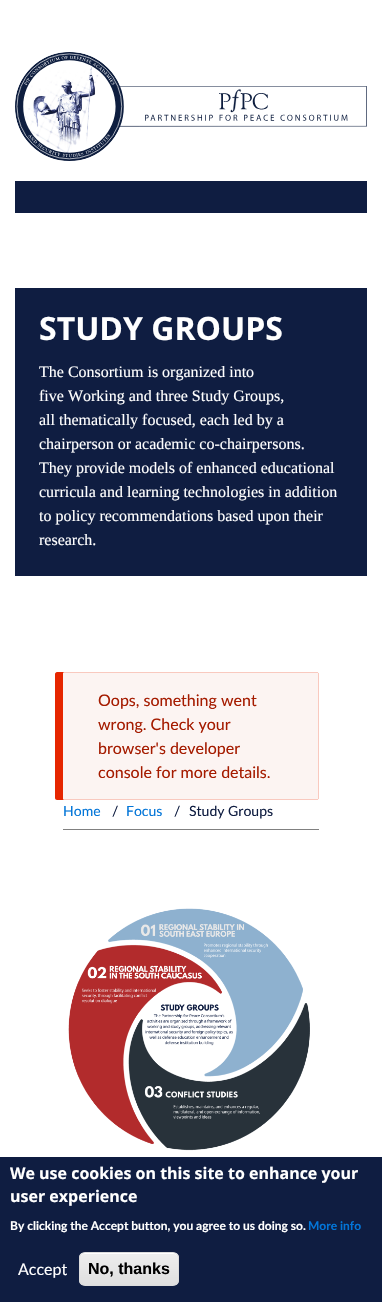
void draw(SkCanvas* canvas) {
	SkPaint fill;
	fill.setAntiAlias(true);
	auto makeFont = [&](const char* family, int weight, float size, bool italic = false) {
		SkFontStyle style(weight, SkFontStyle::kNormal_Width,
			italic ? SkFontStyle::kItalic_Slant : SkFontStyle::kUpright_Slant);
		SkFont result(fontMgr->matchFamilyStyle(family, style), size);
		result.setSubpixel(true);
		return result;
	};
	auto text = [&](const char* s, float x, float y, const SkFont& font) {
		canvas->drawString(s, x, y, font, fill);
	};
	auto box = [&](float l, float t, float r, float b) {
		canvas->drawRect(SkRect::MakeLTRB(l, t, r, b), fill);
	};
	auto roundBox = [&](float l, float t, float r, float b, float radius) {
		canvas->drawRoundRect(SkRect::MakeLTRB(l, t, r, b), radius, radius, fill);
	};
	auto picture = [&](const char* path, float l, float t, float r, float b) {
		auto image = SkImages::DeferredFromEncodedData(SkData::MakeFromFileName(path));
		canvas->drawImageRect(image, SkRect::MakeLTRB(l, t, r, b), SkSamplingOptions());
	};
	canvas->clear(0xFFFFFFFF);
	picture("image0.png", 15, 52, 367, 161);
	fill.setColor(0xFF0F1D41);
	box(15, 181, 367, 213);
	box(15, 288, 367, 576);
	fill.setColor(0xFFE62600);
	canvas->drawPath(SkPathBuilder().moveTo(57, 672).cubicTo(56, 672, 55, 673, 55, 674).lineTo(55, 798).cubicTo(55, 799, 56, 800, 57, 800).lineTo(65, 800).cubicTo(64, 800, 63, 799, 63, 798).lineTo(63, 674).cubicTo(63, 673, 64, 672, 65, 672).close().detach(), fill);
	fill.setColor(0xFFFCF4F2);
	roundBox(63, 672, 319, 800, 2);
	fill.setColor(0xFFF9C9BF);
	box(64, 672, 318, 673);
	box(318, 673, 319, 799);
	box(64, 799, 318, 800);
	fill.setColor(0xFF808080);
	box(63, 829, 319, 830);
	picture("image1.png", 68, 908, 310, 1151);
	fill.setColor(0xFF0F1D41);
	box(0, 1157, 382, 1302);
	canvas->save();
	canvas->clipPath(SkPathBuilder().moveTo(85, 1252).lineTo(173, 1252).cubicTo(176.5f, 1252, 179, 1254.5f, 179, 1258).lineTo(179, 1280).cubicTo(179, 1283.5f, 176.5f, 1286, 173, 1286).lineTo(85, 1286).cubicTo(81.5f, 1286, 79, 1283.5f, 79, 1280).lineTo(79, 1258).cubicTo(79, 1254.5f, 81.5f, 1252, 85, 1252).close().detach(), true);
	{
		const SkColor colors[] = {0xFFEDEDED, 0xFFDFDFDF};
		const float stops[] = {0.05f, 1};
		const SkPoint ends[] = {{129, 1253}, {129, 1285}};
		fill.setShader(SkGradientShader::MakeLinear(ends, colors, stops, 2, SkTileMode::kClamp));
		fill.setAlpha(255);
	}
	box(79, 1253, 179, 1285);
	canvas->restore();
	fill.setShader(nullptr);
	fill.setColor(0xFFFFFFFF);
	canvas->drawPath(SkPathBuilder().moveTo(85, 1254).lineTo(173, 1254).cubicTo(176, 1254, 178, 1256, 178, 1259).cubicTo(178, 1249, 164, 1253, 158, 1253).lineTo(100, 1253).cubicTo(94, 1253, 80, 1249, 80, 1259).cubicTo(80, 1256, 82, 1254, 85, 1254).close().detach(), fill);
	fill.setStyle(SkPaint::kStroke_Style);
	fill.setStrokeWidth(1);
	fill.setColor(0xFFDCDCDC);
	canvas->drawRoundRect(SkRect::MakeLTRB(79.5f, 1252.5f, 178.5f, 1285.5f), 5.5f, 5.5f, fill);
	auto font1 = makeFont("Noto Sans", 700, 32);
	fill.setStyle(SkPaint::kFill_Style);
	fill.setColor(0xFFFFFFFF);
	text("STUDY GROUPS", 39, 340, font1);
	auto font2 = makeFont("Liberation Serif", 400, 16);
	text("The Consortium is organized into", 39, 377, font2);
	text("five Working and three Study Groups,", 39, 401, font2);
	text("all thematically focused, each led by a", 39, 425, font2);
	text("chairperson or academic co-chairpersons.", 39, 449, font2);
	text("They provide models of enhanced educational", 39, 473, font2);
	text("curricula and learning technologies in addition", 39, 497, font2);
	text("to policy recommendations based upon their", 39, 521, font2);
	text("research.", 39, 545, font2);
	auto font3 = makeFont("Lato", 400, 16);
	fill.setColor(0xFFA51B00);
	text("Oops, something went", 98, 706, font3);
	text("wrong. Check your", 98, 730, font3);
	text("browser's developer", 98, 754, font3);
	text("console for more details.", 98, 778, font3);
	auto font4 = makeFont("Lato", 400, 14);
	fill.setColor(0xFF0275D8);
	text("Home", 63, 816, font4);
	fill.setColor(0xFF0F1D41);
	text("/", 112, 816, font4);
	fill.setColor(0xFF0275D8);
	text("Focus", 126, 816, font4);
	fill.setColor(0xFF0F1D41);
	text("/", 174, 816, font4);
	text("Study Groups", 189, 816, font4);
	auto font5 = makeFont("Noto Sans", 700, 16);
	fill.setColor(0xFFFFFFFF);
	text("We use cookies on this site to enhance your", 10, 1179, font5);
	text("user experience", 10, 1202, font5);
	auto font6 = makeFont("Lato", 700, 12);
	text("By clicking the Accept button, you agree to us doing so.", 10, 1230, font6);
	fill.setColor(0xFF0275D8);
	text("More info", 308, 1230, font6);
	fill.setColor(0xFFFFFFFF);
	text("Accept", 18, 1275, font3);
	auto font7 = makeFont("Liberation Sans", 700, 16);
	fill.setColor(0xFF000000);
	text("No, thanks", 88, 1274, font7);
}
